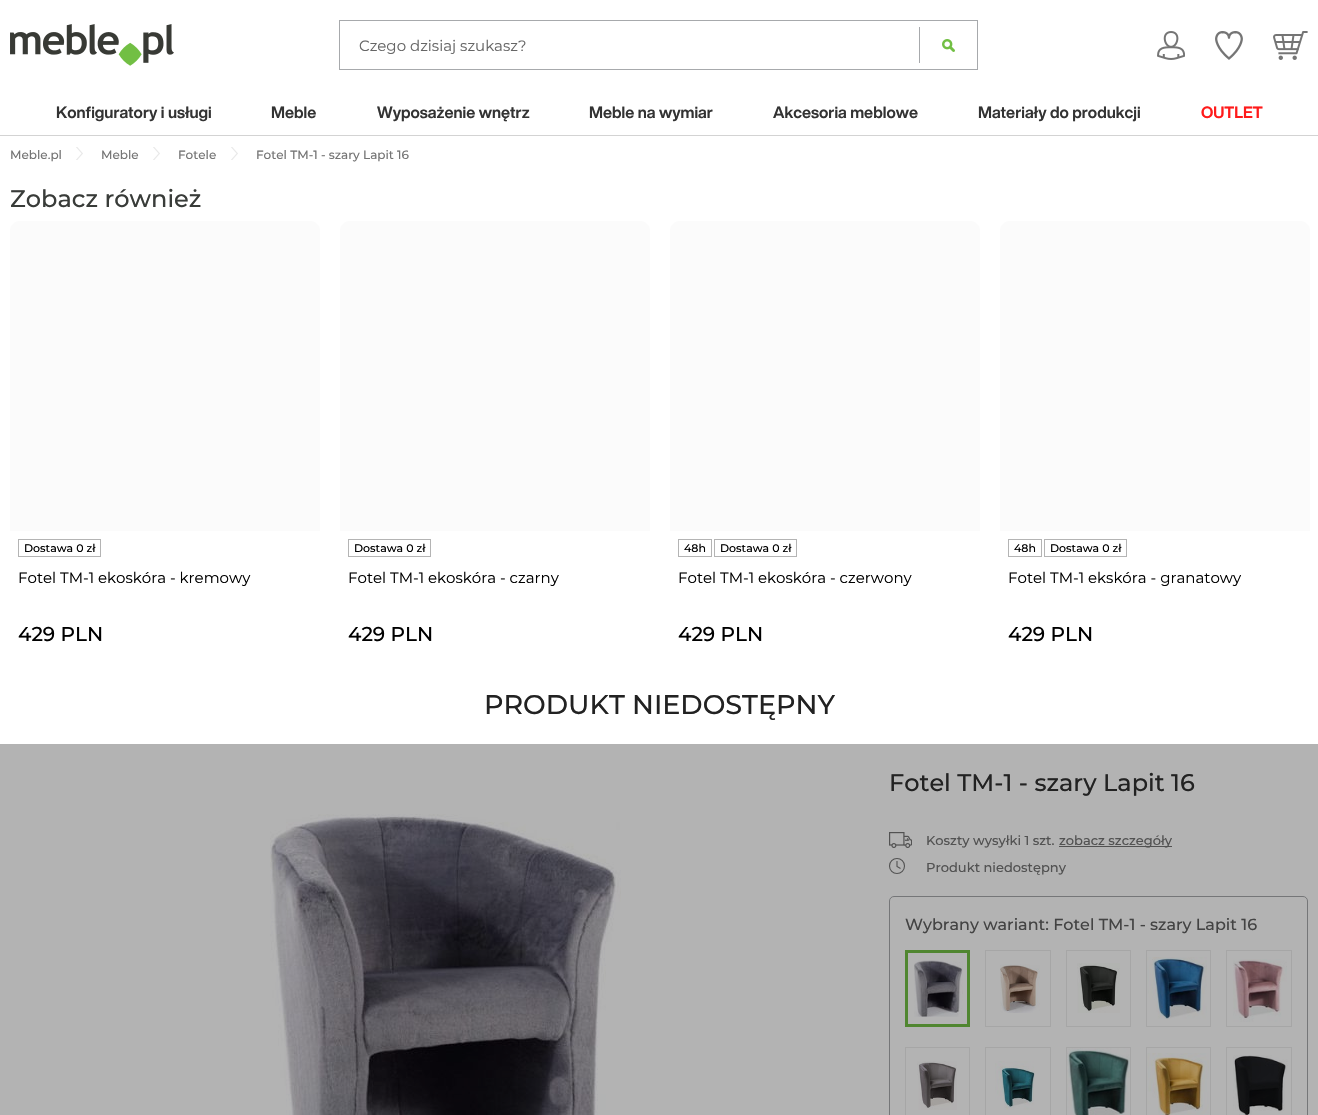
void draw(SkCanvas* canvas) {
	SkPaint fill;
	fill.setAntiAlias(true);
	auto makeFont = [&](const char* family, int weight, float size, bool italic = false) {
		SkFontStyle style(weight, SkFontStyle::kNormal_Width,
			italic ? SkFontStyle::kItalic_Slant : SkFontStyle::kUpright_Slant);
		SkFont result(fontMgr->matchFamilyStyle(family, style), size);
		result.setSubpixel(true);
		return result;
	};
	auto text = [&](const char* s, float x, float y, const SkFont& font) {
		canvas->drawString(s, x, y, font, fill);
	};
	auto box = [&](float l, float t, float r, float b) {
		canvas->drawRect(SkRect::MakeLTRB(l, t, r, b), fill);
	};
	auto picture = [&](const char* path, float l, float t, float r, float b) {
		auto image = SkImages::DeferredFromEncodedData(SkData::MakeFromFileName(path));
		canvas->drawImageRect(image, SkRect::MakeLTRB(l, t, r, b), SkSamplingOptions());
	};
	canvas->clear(0xFFFFFFFF);
	fill.setColor(0xFFB3B3B3);
	box(0, 744, 1318, 1115);
	picture("image0.png", 10, 24, 174, 66);
	fill.setStyle(SkPaint::kStroke_Style);
	fill.setStrokeWidth(1);
	fill.setColor(0xFFA7A9AC);
	canvas->drawRect(SkRect::MakeLTRB(339.5f, 20.5f, 977.5f, 69.5f), fill);
	fill.setStyle(SkPaint::kFill_Style);
	box(919, 27, 920, 63);
	picture("image1.png", 942, 39, 955, 52);
	picture("image2.png", 1157, 31, 1185, 60);
	picture("image3.png", 1215, 31, 1243, 60);
	picture("image4.png", 1273, 31, 1308, 60);
	fill.setColor(0xFFD3D3D3);
	box(0, 135, 1318, 136);
	picture("image5.png", 76, 147, 83, 160);
	picture("image5.png", 153, 147, 160, 160);
	picture("image5.png", 231, 147, 238, 160);
	fill.setColor(0xFFFBFBFB);
	canvas->drawPath(SkPathBuilder().moveTo(20, 221).lineTo(310, 221).cubicTo(315.5f, 221, 320, 225.5f, 320, 231).lineTo(320, 531).lineTo(10, 531).lineTo(10, 231).cubicTo(10, 225.5f, 14.5f, 221, 20, 221).close().detach(), fill);
	fill.setStyle(SkPaint::kStroke_Style);
	fill.setColor(0xFFB4B4B4);
	canvas->drawRect(SkRect::MakeLTRB(18.5f, 539.5f, 100.5f, 556.5f), fill);
	fill.setStyle(SkPaint::kFill_Style);
	fill.setColor(0xFFFBFBFB);
	canvas->drawPath(SkPathBuilder().moveTo(350, 221).lineTo(640, 221).cubicTo(645.5f, 221, 650, 225.5f, 650, 231).lineTo(650, 531).lineTo(340, 531).lineTo(340, 231).cubicTo(340, 225.5f, 344.5f, 221, 350, 221).close().detach(), fill);
	fill.setStyle(SkPaint::kStroke_Style);
	fill.setColor(0xFFB4B4B4);
	canvas->drawRect(SkRect::MakeLTRB(348.5f, 539.5f, 430.5f, 556.5f), fill);
	fill.setStyle(SkPaint::kFill_Style);
	fill.setColor(0xFFFBFBFB);
	canvas->drawPath(SkPathBuilder().moveTo(680, 221).lineTo(970, 221).cubicTo(975.5f, 221, 980, 225.5f, 980, 231).lineTo(980, 531).lineTo(670, 531).lineTo(670, 231).cubicTo(670, 225.5f, 674.5f, 221, 680, 221).close().detach(), fill);
	fill.setStyle(SkPaint::kStroke_Style);
	fill.setColor(0xFFB4B4B4);
	canvas->drawRect(SkRect::MakeLTRB(678.5f, 539.5f, 711.5f, 556.5f), fill);
	canvas->drawRect(SkRect::MakeLTRB(714.5f, 539.5f, 796.5f, 556.5f), fill);
	fill.setStyle(SkPaint::kFill_Style);
	fill.setColor(0xFFFBFBFB);
	canvas->drawPath(SkPathBuilder().moveTo(1010, 221).lineTo(1300, 221).cubicTo(1305.5f, 221, 1310, 225.5f, 1310, 231).lineTo(1310, 531).lineTo(1000, 531).lineTo(1000, 231).cubicTo(1000, 225.5f, 1004.5f, 221, 1010, 221).close().detach(), fill);
	fill.setStyle(SkPaint::kStroke_Style);
	fill.setColor(0xFFB4B4B4);
	canvas->drawRect(SkRect::MakeLTRB(1008.5f, 539.5f, 1041.5f, 556.5f), fill);
	canvas->drawRect(SkRect::MakeLTRB(1044.5f, 539.5f, 1126.5f, 556.5f), fill);
	picture("image6.png", 270, 814, 621, 1115);
	picture("image7.png", 889, 832, 912, 848);
	fill.setStyle(SkPaint::kFill_Style);
	fill.setColor(0xFF525252);
	box(1059, 846, 1172, 847);
	fill.setStyle(SkPaint::kStroke_Style);
	fill.setStrokeWidth(1.1f);
	canvas->drawCircle(897, 866, 7.5f, fill);
	canvas->drawPath(SkPathBuilder().moveTo(897, 861).lineTo(897, 866.5f).lineTo(900.5f, 868.5f).detach(), fill);
	fill.setStrokeWidth(1);
	fill.setColor(0xFF757678);
	canvas->drawRoundRect(SkRect::MakeLTRB(889.5f, 896.5f, 1307.5f, 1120.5f), 4.5f, 4.5f, fill);
	picture("image8.png", 914, 960, 963, 1017);
	fill.setStrokeWidth(3);
	fill.setColor(0xFF508630);
	canvas->drawRect(SkRect::MakeLTRB(906.5f, 951.5f, 968.5f, 1025.5f), fill);
	picture("image9.png", 1000, 964, 1040, 1013);
	fill.setStrokeWidth(1);
	fill.setColor(0xFFA6A6A6);
	canvas->drawRect(SkRect::MakeLTRB(985.5f, 950.5f, 1050.5f, 1026.5f), fill);
	picture("image10.png", 1077, 963, 1120, 1013);
	canvas->drawRect(SkRect::MakeLTRB(1066.5f, 950.5f, 1130.5f, 1026.5f), fill);
	picture("image11.png", 1147, 957, 1207, 1019);
	canvas->drawRect(SkRect::MakeLTRB(1146.5f, 950.5f, 1210.5f, 1026.5f), fill);
	picture("image12.png", 1233, 959, 1287, 1022);
	canvas->drawRect(SkRect::MakeLTRB(1226.5f, 950.5f, 1291.5f, 1026.5f), fill);
	picture("image13.png", 917, 1061, 957, 1110);
	canvas->drawRect(SkRect::MakeLTRB(905.5f, 1047.5f, 969.5f, 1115.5f), fill);
	picture("image14.png", 995, 1061, 1035, 1110);
	canvas->drawRect(SkRect::MakeLTRB(985.5f, 1047.5f, 1050.5f, 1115.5f), fill);
	picture("image15.png", 1067, 1048, 1130, 1115);
	canvas->drawRect(SkRect::MakeLTRB(1066.5f, 1047.5f, 1130.5f, 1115.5f), fill);
	picture("image16.png", 1147, 1053, 1209, 1115);
	canvas->drawRect(SkRect::MakeLTRB(1146.5f, 1047.5f, 1210.5f, 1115.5f), fill);
	picture("image17.png", 1233, 1055, 1288, 1115);
	canvas->drawRect(SkRect::MakeLTRB(1226.5f, 1047.5f, 1291.5f, 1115.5f), fill);
	auto font1 = makeFont("Montserrat", 400, 15);
	fill.setStyle(SkPaint::kFill_Style);
	fill.setColor(0xFF666666);
	text("Czego dzisiaj szukasz?", 359, 51, font1);
	auto font2 = makeFont("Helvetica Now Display", 700, 16);
	fill.setColor(0xFF333333);
	text("Konfiguratory i usługi", 56, 118, font2);
	text("Meble", 271, 118, font2);
	text("Wyposażenie wnętrz", 377, 118, font2);
	text("Meble na wymiar", 589, 118, font2);
	text("Akcesoria meblowe", 773, 118, font2);
	text("Materiały do produkcji", 978, 118, font2);
	fill.setColor(0xFFFF1A1A);
	text("OUTLET", 1201, 118, font2);
	auto font3 = makeFont("Montserrat", 500, 12);
	fill.setColor(0xFF757575);
	text("Meble.pl", 10, 159, font3);
	text("Meble", 101, 159, font3);
	text("Fotele", 178, 159, font3);
	text("Fotel TM-1 - szary Lapit 16", 256, 159, font3);
	auto font4 = makeFont("Montserrat", 500, 24);
	fill.setColor(0xFF393C39);
	text("Zobacz również", 10, 207, font4);
	auto font5 = makeFont("Montserrat", 500, 11);
	fill.setColor(0xFF000000);
	text("Dostawa 0 zł", 24, 552, font5);
	text("Fotel TM-1 ekoskóra - kremowy", 18, 583, font1);
	auto font6 = makeFont("Montserrat", 500, 20);
	text("429 PLN", 18, 641, font6);
	text("Dostawa 0 zł", 354, 552, font5);
	text("Fotel TM-1 ekoskóra - czarny", 348, 583, font1);
	text("429 PLN", 348, 641, font6);
	text("48h", 684, 552, font5);
	text("Dostawa 0 zł", 720, 552, font5);
	text("Fotel TM-1 ekoskóra - czerwony", 678, 583, font1);
	text("429 PLN", 678, 641, font6);
	text("48h", 1014, 552, font5);
	text("Dostawa 0 zł", 1050, 552, font5);
	text("Fotel TM-1 ekskóra - granatowy", 1008, 583, font1);
	text("429 PLN", 1008, 641, font6);
	auto font7 = makeFont("Montserrat", 500, 27);
	fill.setColor(0xFF222222);
	text("PRODUKT NIEDOSTĘPNY", 484, 714, font7);
	text("Fotel TM-1 - szary Lapit 16", 889, 791, font4);
	auto font8 = makeFont("Montserrat", 500, 13);
	fill.setColor(0xFF525252);
	text("Koszty wysyłki 1 szt.", 926, 845, font8);
	text("zobacz szczegóły", 1059, 845, font8);
	text("Produkt niedostępny", 926, 872, font8);
	auto font9 = makeFont("Montserrat", 500, 16);
	fill.setColor(0xFF434343);
	text("Wybrany wariant: Fotel TM-1 - szary Lapit 16", 905, 930, font9);
}
